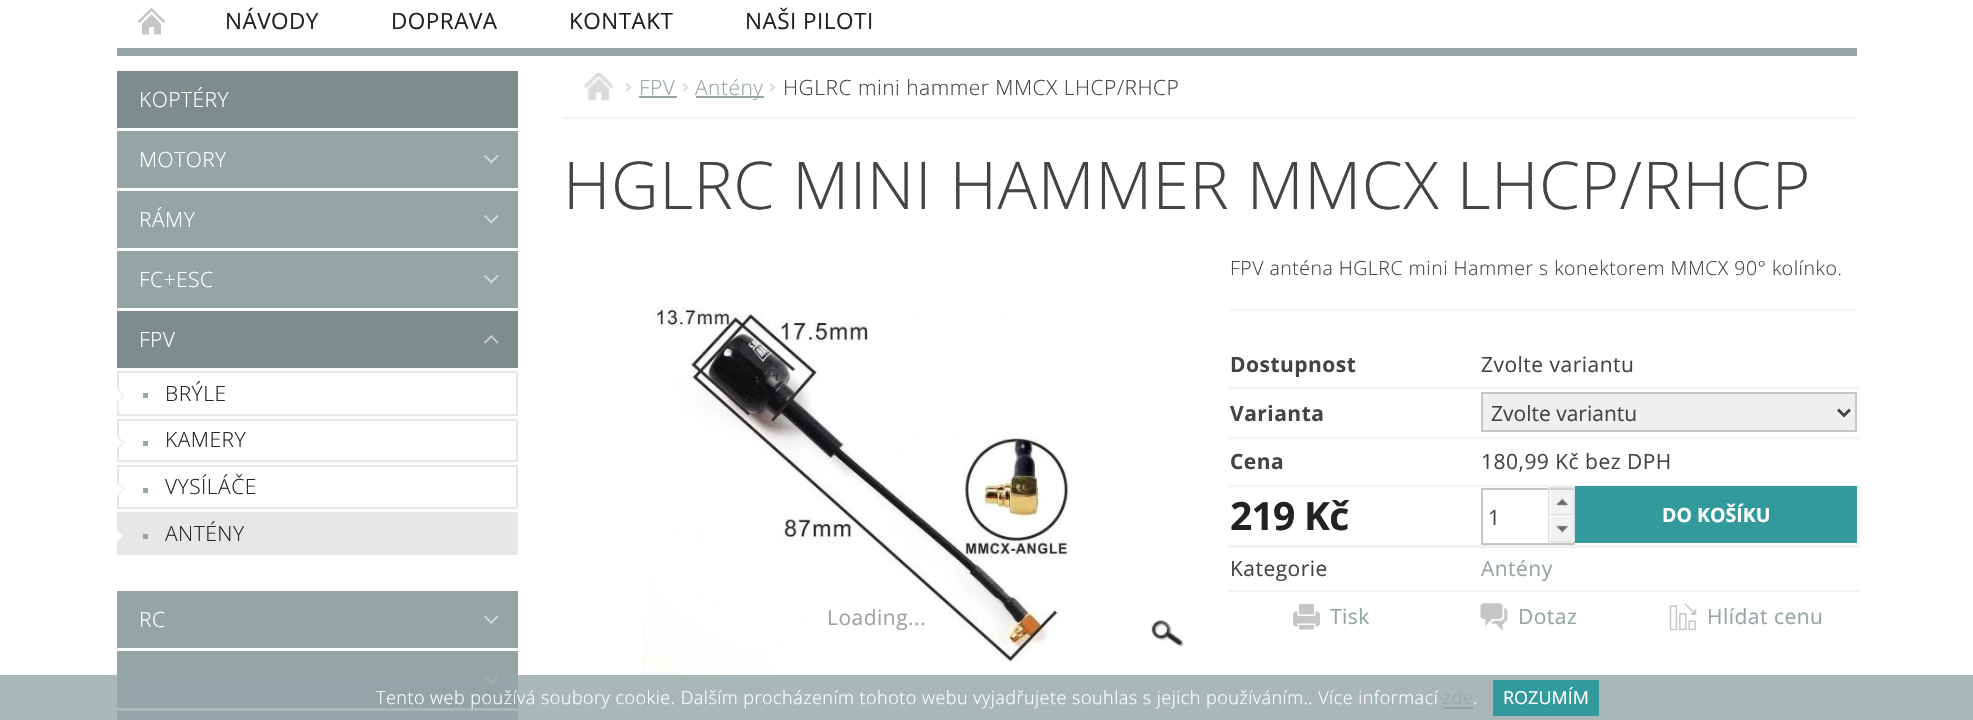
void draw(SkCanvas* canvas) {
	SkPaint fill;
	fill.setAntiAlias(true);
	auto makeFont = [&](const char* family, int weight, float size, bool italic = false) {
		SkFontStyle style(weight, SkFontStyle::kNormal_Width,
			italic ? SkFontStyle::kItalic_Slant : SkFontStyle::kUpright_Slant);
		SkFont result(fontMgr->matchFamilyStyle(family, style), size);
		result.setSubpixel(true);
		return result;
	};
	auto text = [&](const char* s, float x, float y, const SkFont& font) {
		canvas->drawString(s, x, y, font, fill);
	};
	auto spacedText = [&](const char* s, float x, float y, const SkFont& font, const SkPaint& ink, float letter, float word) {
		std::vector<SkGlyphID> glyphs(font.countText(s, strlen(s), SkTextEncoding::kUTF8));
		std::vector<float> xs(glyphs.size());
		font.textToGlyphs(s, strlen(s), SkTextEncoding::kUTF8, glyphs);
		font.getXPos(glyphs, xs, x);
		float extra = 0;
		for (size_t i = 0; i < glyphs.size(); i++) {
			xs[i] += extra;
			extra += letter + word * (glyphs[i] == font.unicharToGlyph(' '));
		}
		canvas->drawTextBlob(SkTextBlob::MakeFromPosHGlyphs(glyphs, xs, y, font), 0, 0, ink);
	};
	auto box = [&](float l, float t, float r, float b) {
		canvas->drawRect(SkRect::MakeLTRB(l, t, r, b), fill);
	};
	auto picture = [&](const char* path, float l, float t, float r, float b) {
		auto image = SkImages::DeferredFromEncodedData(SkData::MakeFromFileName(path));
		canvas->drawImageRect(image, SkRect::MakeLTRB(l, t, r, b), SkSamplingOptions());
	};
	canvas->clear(0xFFFFFFFF);
	fill.setColor(0xFF95A5A6);
	box(117, 48, 1857, 56);
	picture("image0.png", 138, 8, 165, 35);
	fill.setColor(0xFF7F8C8D);
	box(117, 71, 518, 128);
	fill.setColor(0xFF95A5A6);
	box(117, 131, 518, 188);
	picture("image1.png", 484, 155, 498, 164);
	box(117, 191, 518, 248);
	picture("image1.png", 484, 215, 498, 224);
	box(117, 251, 518, 308);
	picture("image1.png", 484, 275, 498, 284);
	fill.setColor(0xFF7F8C8D);
	box(117, 311, 518, 368);
	picture("image2.png", 484, 335, 498, 344);
	fill.setStyle(SkPaint::kStroke_Style);
	fill.setStrokeWidth(2);
	fill.setColor(0xFFE7E7E7);
	canvas->drawRect(SkRect::MakeLTRB(118, 372, 517, 415), fill);
	picture("image3.png", 117, 389, 125, 401);
	fill.setStyle(SkPaint::kFill_Style);
	fill.setColor(0xFF95A5A6);
	box(143, 393, 148, 398);
	fill.setStyle(SkPaint::kStroke_Style);
	fill.setColor(0xFFE7E7E7);
	canvas->drawRect(SkRect::MakeLTRB(118, 420, 517, 461), fill);
	picture("image4.png", 117, 437, 125, 448);
	fill.setStyle(SkPaint::kFill_Style);
	fill.setColor(0xFF95A5A6);
	box(143, 441, 148, 446);
	fill.setStyle(SkPaint::kStroke_Style);
	fill.setColor(0xFFE7E7E7);
	canvas->drawRect(SkRect::MakeLTRB(118, 466, 517, 508), fill);
	picture("image5.png", 117, 484, 125, 495);
	fill.setStyle(SkPaint::kFill_Style);
	fill.setColor(0xFF95A5A6);
	box(143, 488, 148, 493);
	fill.setStyle(SkPaint::kStroke_Style);
	fill.setColor(0xFFE7E7E7);
	canvas->drawRect(SkRect::MakeLTRB(118, 513, 517, 554), fill);
	fill.setStyle(SkPaint::kFill_Style);
	box(119, 514, 516, 553);
	picture("image6.png", 117, 530, 123, 541);
	fill.setColor(0xFF95A5A6);
	box(143, 534, 148, 539);
	box(117, 591, 518, 648);
	picture("image7.png", 484, 615, 498, 624);
	box(117, 651, 518, 708);
	picture("image7.png", 484, 675, 498, 684);
	box(117, 711, 518, 720);
	fill.setColor(0xFFF2F2F2);
	box(563, 117, 1857, 119);
	picture("image8.png", 583, 73, 614, 101);
	picture("image9.png", 625, 83, 632, 92);
	fill.setColor(0xFF95A5A6);
	box(639, 96, 677, 98);
	picture("image9.png", 682, 83, 689, 92);
	box(696, 96, 764, 98);
	picture("image10.png", 769, 83, 776, 92);
	picture("image11.png", 642, 306, 1069, 720);
	picture("image12.png", 1151, 620, 1184, 647);
	fill.setColor(0xFFF2F2F2);
	box(1230, 309, 1857, 311);
	box(1229, 387, 1859, 389);
	box(1229, 437, 1859, 439);
	fill.setColor(0xFFEFEFEF);
	canvas->drawRect(SkRect::MakeLTRB(1482, 393, 1856, 431), fill);
	fill.setStyle(SkPaint::kStroke_Style);
	fill.setColor(0xFFC6C6C6);
	canvas->drawRect(SkRect::MakeLTRB(1482, 393, 1856, 431), fill);
	fill.setStrokeWidth(3);
	fill.setColor(0xFF444444);
	canvas->drawPath(SkPathBuilder().moveTo(1838, 409.5f).lineTo(1844, 415.5f).lineTo(1850, 409.5f).detach(), fill);
	fill.setStyle(SkPaint::kFill_Style);
	fill.setColor(0xFFF2F2F2);
	box(1229, 485, 1859, 487);
	box(1229, 545, 1859, 548);
	fill.setStyle(SkPaint::kStroke_Style);
	fill.setStrokeWidth(2);
	fill.setColor(0xFFC6C6C6);
	canvas->drawRect(SkRect::MakeLTRB(1482, 489, 1574, 544), fill);
	picture("image13.png", 1548, 487, 1575, 514);
	picture("image14.png", 1548, 514, 1575, 543);
	fill.setStyle(SkPaint::kFill_Style);
	fill.setColor(0xFF329A9D);
	box(1575, 486, 1857, 543);
	fill.setColor(0xFFF2F2F2);
	box(1229, 590, 1859, 592);
	picture("image15.png", 1293, 603, 1320, 630);
	picture("image16.png", 1480, 603, 1508, 631);
	picture("image17.png", 1669, 603, 1697, 631);
	fill.setColor(0xCC95A5A6);
	box(0, 675, 1973, 720);
	fill.setColor(0xFF95A5A6);
	box(1443, 707, 1473, 709);
	fill.setColor(0xFF329A9D);
	box(1493, 680, 1599, 716);
	auto font1 = makeFont("Open Sans", 400, 22.5f);
	fill.setColor(0xFF222222);
	spacedText("NÁVODY", 225, 29, font1, fill, 0.48f, 0);
	spacedText("DOPRAVA", 391, 29, font1, fill, 0.48f, 0);
	spacedText("KONTAKT", 569, 29, font1, fill, 0.48f, 0);
	spacedText("NAŠI PILOTI", 745, 29, font1, fill, 0.48f, 0);
	auto font2 = makeFont("Open Sans", 300, 21);
	fill.setColor(0xFFFFFFFF);
	spacedText("KOPTÉRY", 139, 107, font2, fill, 0.48f, 0);
	spacedText("MOTORY", 139, 167, font2, fill, 0.48f, 0);
	spacedText("RÁMY", 139, 227, font2, fill, 0.48f, 0);
	spacedText("FC+ESC", 139, 287, font2, fill, 0.48f, 0);
	spacedText("FPV", 139, 347, font2, fill, 0.48f, 0);
	fill.setColor(0xFF222222);
	spacedText("BRÝLE", 165, 401, font2, fill, 0.48f, 0);
	spacedText("KAMERY", 165, 447, font2, fill, 0.48f, 0);
	spacedText("VYSÍLÁČE", 165, 494, font2, fill, 0.48f, 0);
	spacedText("ANTÉNY", 165, 541, font2, fill, 0.48f, 0);
	fill.setColor(0xFFFFFFFF);
	spacedText("RC", 139, 627, font2, fill, 0.48f, 0);
	fill.setColor(0xFF95A5A6);
	spacedText("FPV", 639, 95, font2, fill, 0.48f, 0);
	spacedText("Antény", 695, 95, font2, fill, 0.48f, 0);
	fill.setColor(0xFF444444);
	spacedText("HGLRC mini hammer MMCX LHCP/RHCP", 783, 95, font2, fill, 0.48f, 0);
	auto font3 = makeFont("Open Sans", 300, 66);
	spacedText("HGLRC MINI HAMMER MMCX LHCP/RHCP", 563, 209, font3, fill, 0.48f, 0);
	auto font4 = makeFont("Open Sans", 400, 21);
	fill.setColor(0xFFA1A1A1);
	spacedText("Loading...", 827, 625, font4, fill, 0.48f, 0);
	auto font5 = makeFont("Open Sans", 300, 19.5f);
	fill.setColor(0xFF444444);
	spacedText("FPV anténa HGLRC mini Hammer s konektorem MMCX 90° kolínko.", 1230, 275, font5, fill, 0.48f, 0);
	auto font6 = makeFont("Open Sans", 700, 21);
	spacedText("Dostupnost", 1230, 372, font6, fill, 0.48f, 0);
	spacedText("Zvolte variantu", 1481, 372, font4, fill, 0.48f, 0);
	spacedText("Varianta", 1230, 421, font6, fill, 0.48f, 0);
	text("Zvolte variantu", 1491, 421, font4);
	spacedText("Cena", 1230, 469, font6, fill, 0.48f, 0);
	spacedText("180,99 Kč bez DPH", 1481, 469, font4, fill, 0.48f, 0);
	auto font7 = makeFont("Open Sans", 700, 39);
	fill.setColor(0xFF222222);
	spacedText("219 Kč", 1230, 530, font7, fill, -0.75f, 0);
	fill.setColor(0xFF444444);
	text("1", 1488, 525, font4);
	auto font8 = makeFont("Open Sans", 700, 19.5f);
	fill.setColor(0xFFFFFFFF);
	text("DO KOŠÍKU", 1662, 522, font8);
	fill.setColor(0xFF444444);
	spacedText("Kategorie", 1230, 576, font4, fill, 0.48f, 0);
	fill.setColor(0xFF95A5A6);
	spacedText("Antény", 1481, 576, font4, fill, 0.48f, 0);
	spacedText("Tisk", 1330, 624, font4, fill, 0.48f, 0);
	spacedText("Dotaz", 1518, 624, font4, fill, 0.48f, 0);
	spacedText("Hlídat cenu", 1707, 624, font4, fill, 0.48f, 0);
	auto font9 = makeFont("Open Sans", 300, 18);
	fill.setColor(0xFFFFFFFF);
	spacedText("Tento web používá soubory cookie. Dalším procházením tohoto webu vyjadřujete souhlas s jejich používáním.. Více informací", 376, 704, font9, fill, 0.48f, 0);
	fill.setColor(0xFF95A5A6);
	spacedText("zde", 1443, 704, font9, fill, 0.48f, 0);
	fill.setColor(0xFFFFFFFF);
	spacedText(".", 1473, 704, font9, fill, 0.48f, 0);
	auto font10 = makeFont("Open Sans", 400, 18);
	text("ROZUMÍM", 1503, 704, font10);
}
